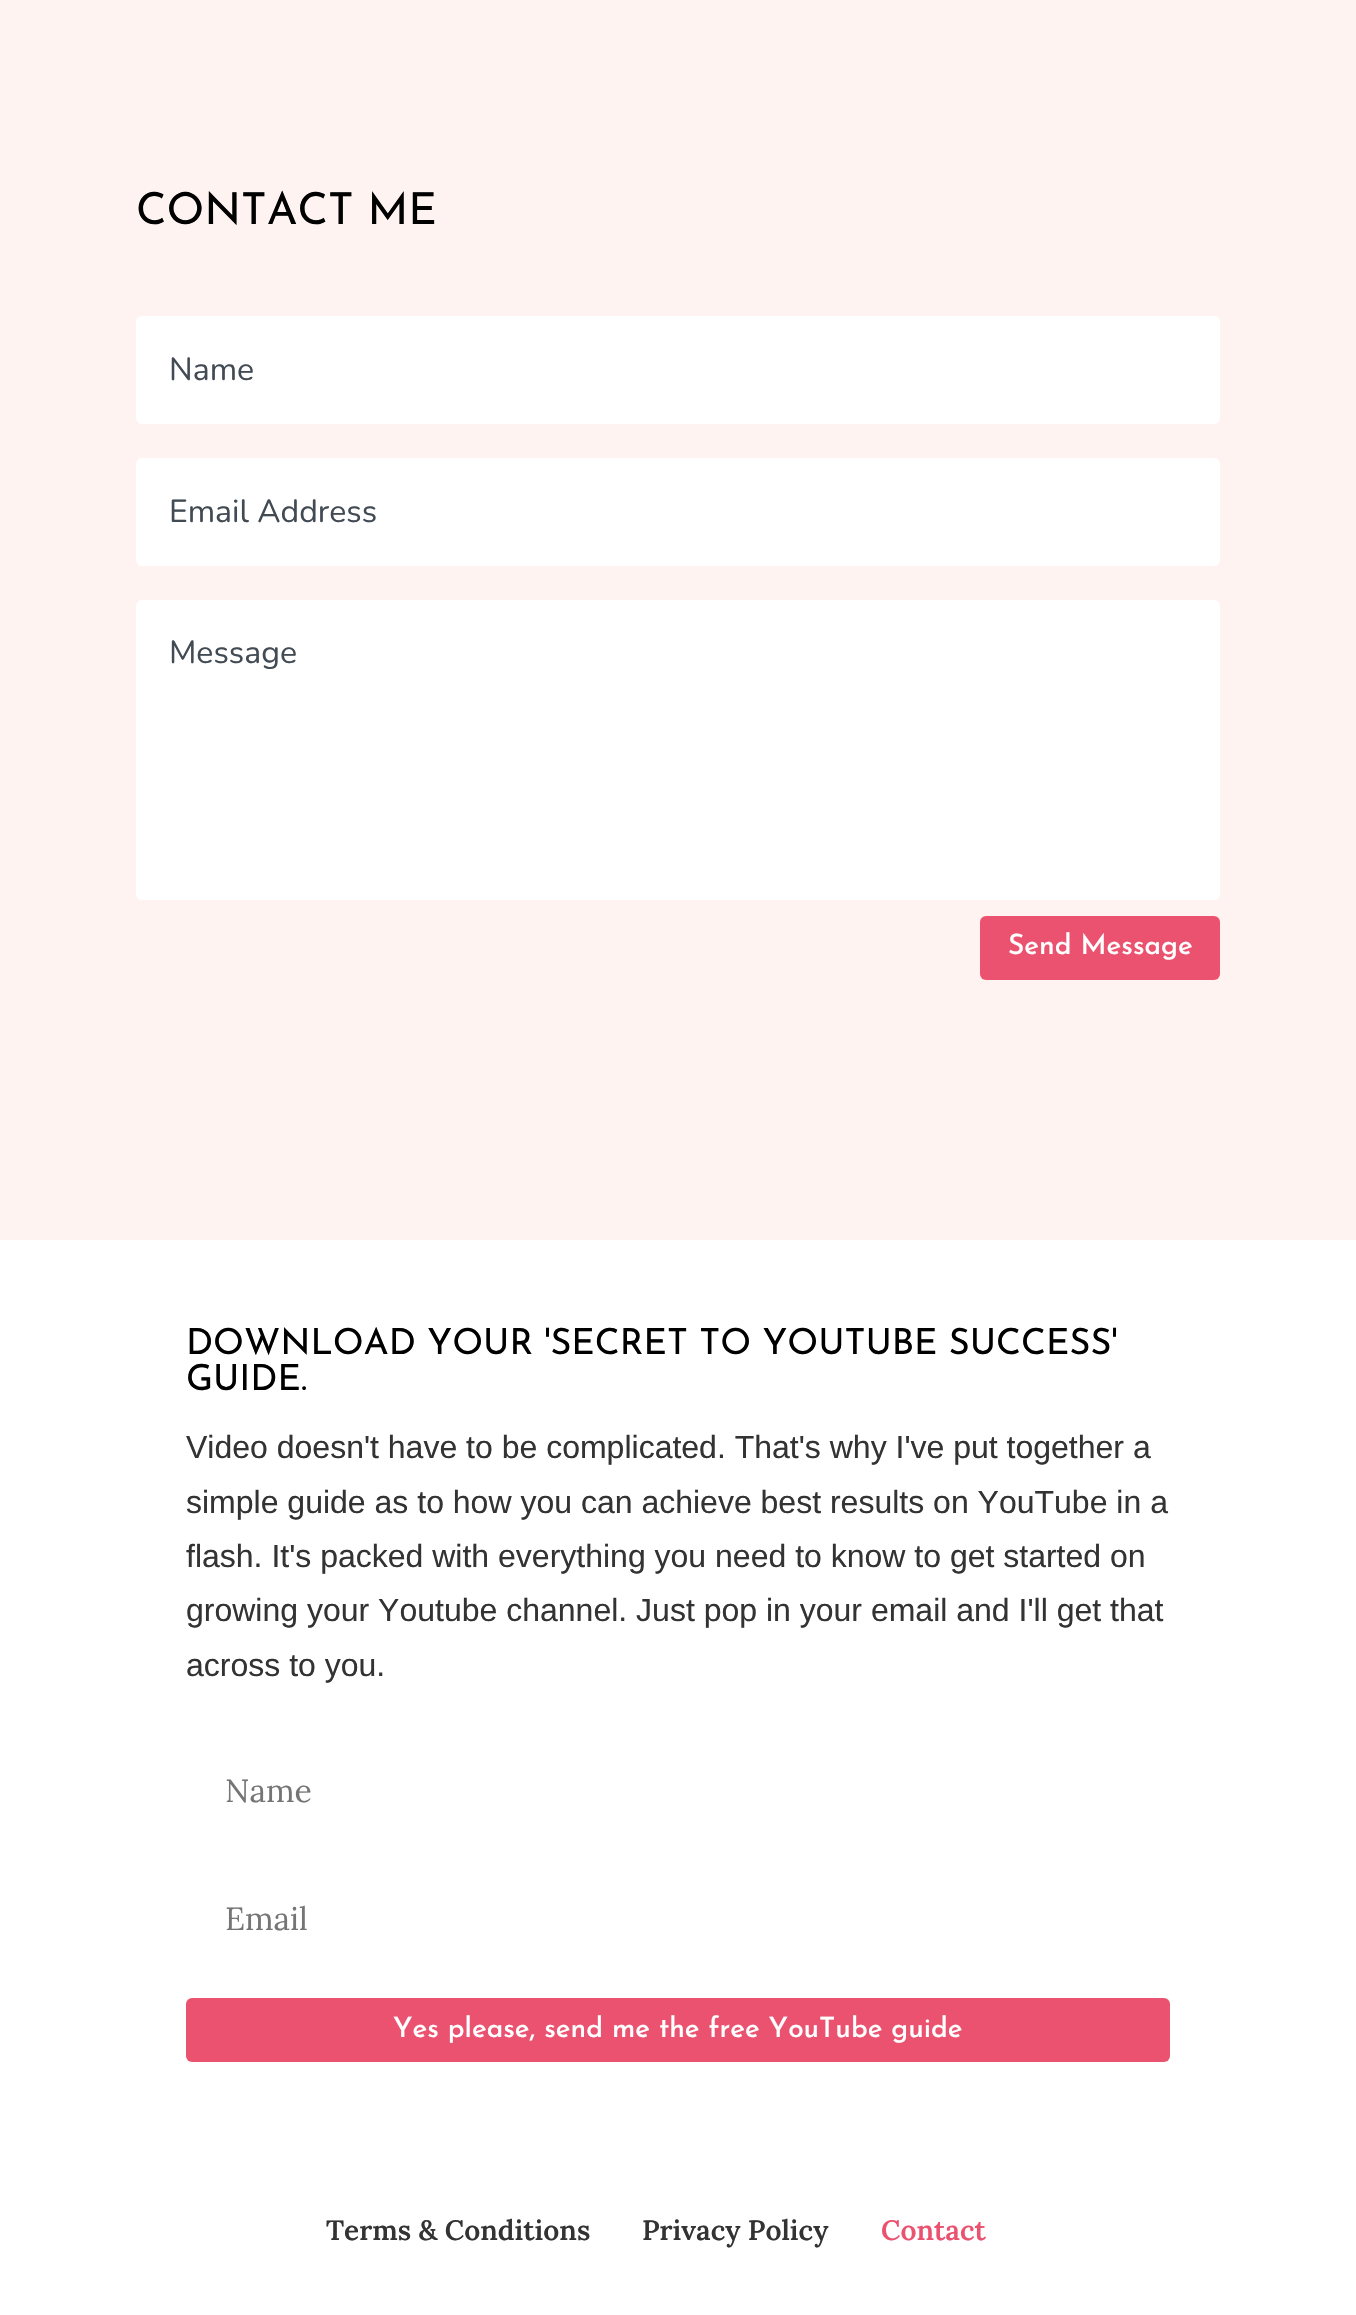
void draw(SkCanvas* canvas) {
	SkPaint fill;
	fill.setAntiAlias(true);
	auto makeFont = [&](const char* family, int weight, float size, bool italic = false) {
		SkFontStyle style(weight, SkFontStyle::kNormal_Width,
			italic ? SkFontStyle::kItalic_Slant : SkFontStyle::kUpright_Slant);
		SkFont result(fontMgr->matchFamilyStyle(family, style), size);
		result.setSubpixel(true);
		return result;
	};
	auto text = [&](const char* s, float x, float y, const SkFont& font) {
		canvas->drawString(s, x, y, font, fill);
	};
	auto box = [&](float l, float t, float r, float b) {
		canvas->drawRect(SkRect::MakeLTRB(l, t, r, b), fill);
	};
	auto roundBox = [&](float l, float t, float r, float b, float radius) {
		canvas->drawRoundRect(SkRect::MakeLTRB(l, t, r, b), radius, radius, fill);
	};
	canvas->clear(0xFFFFFFFF);
	fill.setColor(0xFFFFF3F2);
	box(0, 0, 1356, 1240);
	fill.setColor(0xFFFFFFFF);
	roundBox(136, 316, 1220, 424, 6);
	roundBox(136, 458, 1220, 566, 6);
	roundBox(136, 600, 1220, 900, 6);
	fill.setColor(0xFFEA526F);
	roundBox(980, 916, 1220, 980, 6);
	roundBox(186, 1998, 1170, 2062, 6);
	auto font1 = makeFont("Josefin Sans", 400, 44);
	fill.setColor(0xFF000000);
	text("CONTACT ME", 136, 224, font1);
	auto font2 = makeFont("Nunito", 400, 32);
	fill.setColor(0xFF424B54);
	text("Name", 169, 380, font2);
	text("Email Address", 169, 522, font2);
	text("Message", 169, 663, font2);
	auto font3 = makeFont("Josefin Sans", 500, 28);
	fill.setColor(0xFFFFFFFF);
	text("Send Message", 1008, 954, font3);
	auto font4 = makeFont("Josefin Sans", 400, 36);
	fill.setColor(0xFF000000);
	text("DOWNLOAD YOUR 'SECRET TO YOUTUBE SUCCESS'", 186, 1354, font4);
	text("GUIDE.", 186, 1390, font4);
	auto font5 = makeFont("Liberation Sans", 400, 32);
	fill.setColor(0xFF333333);
	text("Video doesn't have to be complicated. That's why I've put together a", 186, 1458, font5);
	text("simple guide as to how you can achieve best results on YouTube in a", 186, 1513, font5);
	text("flash. It's packed with everything you need to know to get started on", 186, 1567, font5);
	text("growing your Youtube channel. Just pop in your email and I'll get that", 186, 1621, font5);
	text("across to you.", 186, 1676, font5);
	auto font6 = makeFont("Lora", 400, 32);
	fill.setColor(0xFF757575);
	text("Name", 225, 1802, font6);
	text("Email", 225, 1930, font6);
	fill.setColor(0xFFFFFFFF);
	text("Yes please, send me the free YouTube guide", 393, 2037, font3);
	auto font7 = makeFont("Lora", 600, 28);
	fill.setColor(0xFF333333);
	text("Terms & Conditions", 326, 2240, font7);
	text("Privacy Policy", 642, 2240, font7);
	fill.setColor(0xFFEA526F);
	text("Contact", 881, 2240, font7);
}
